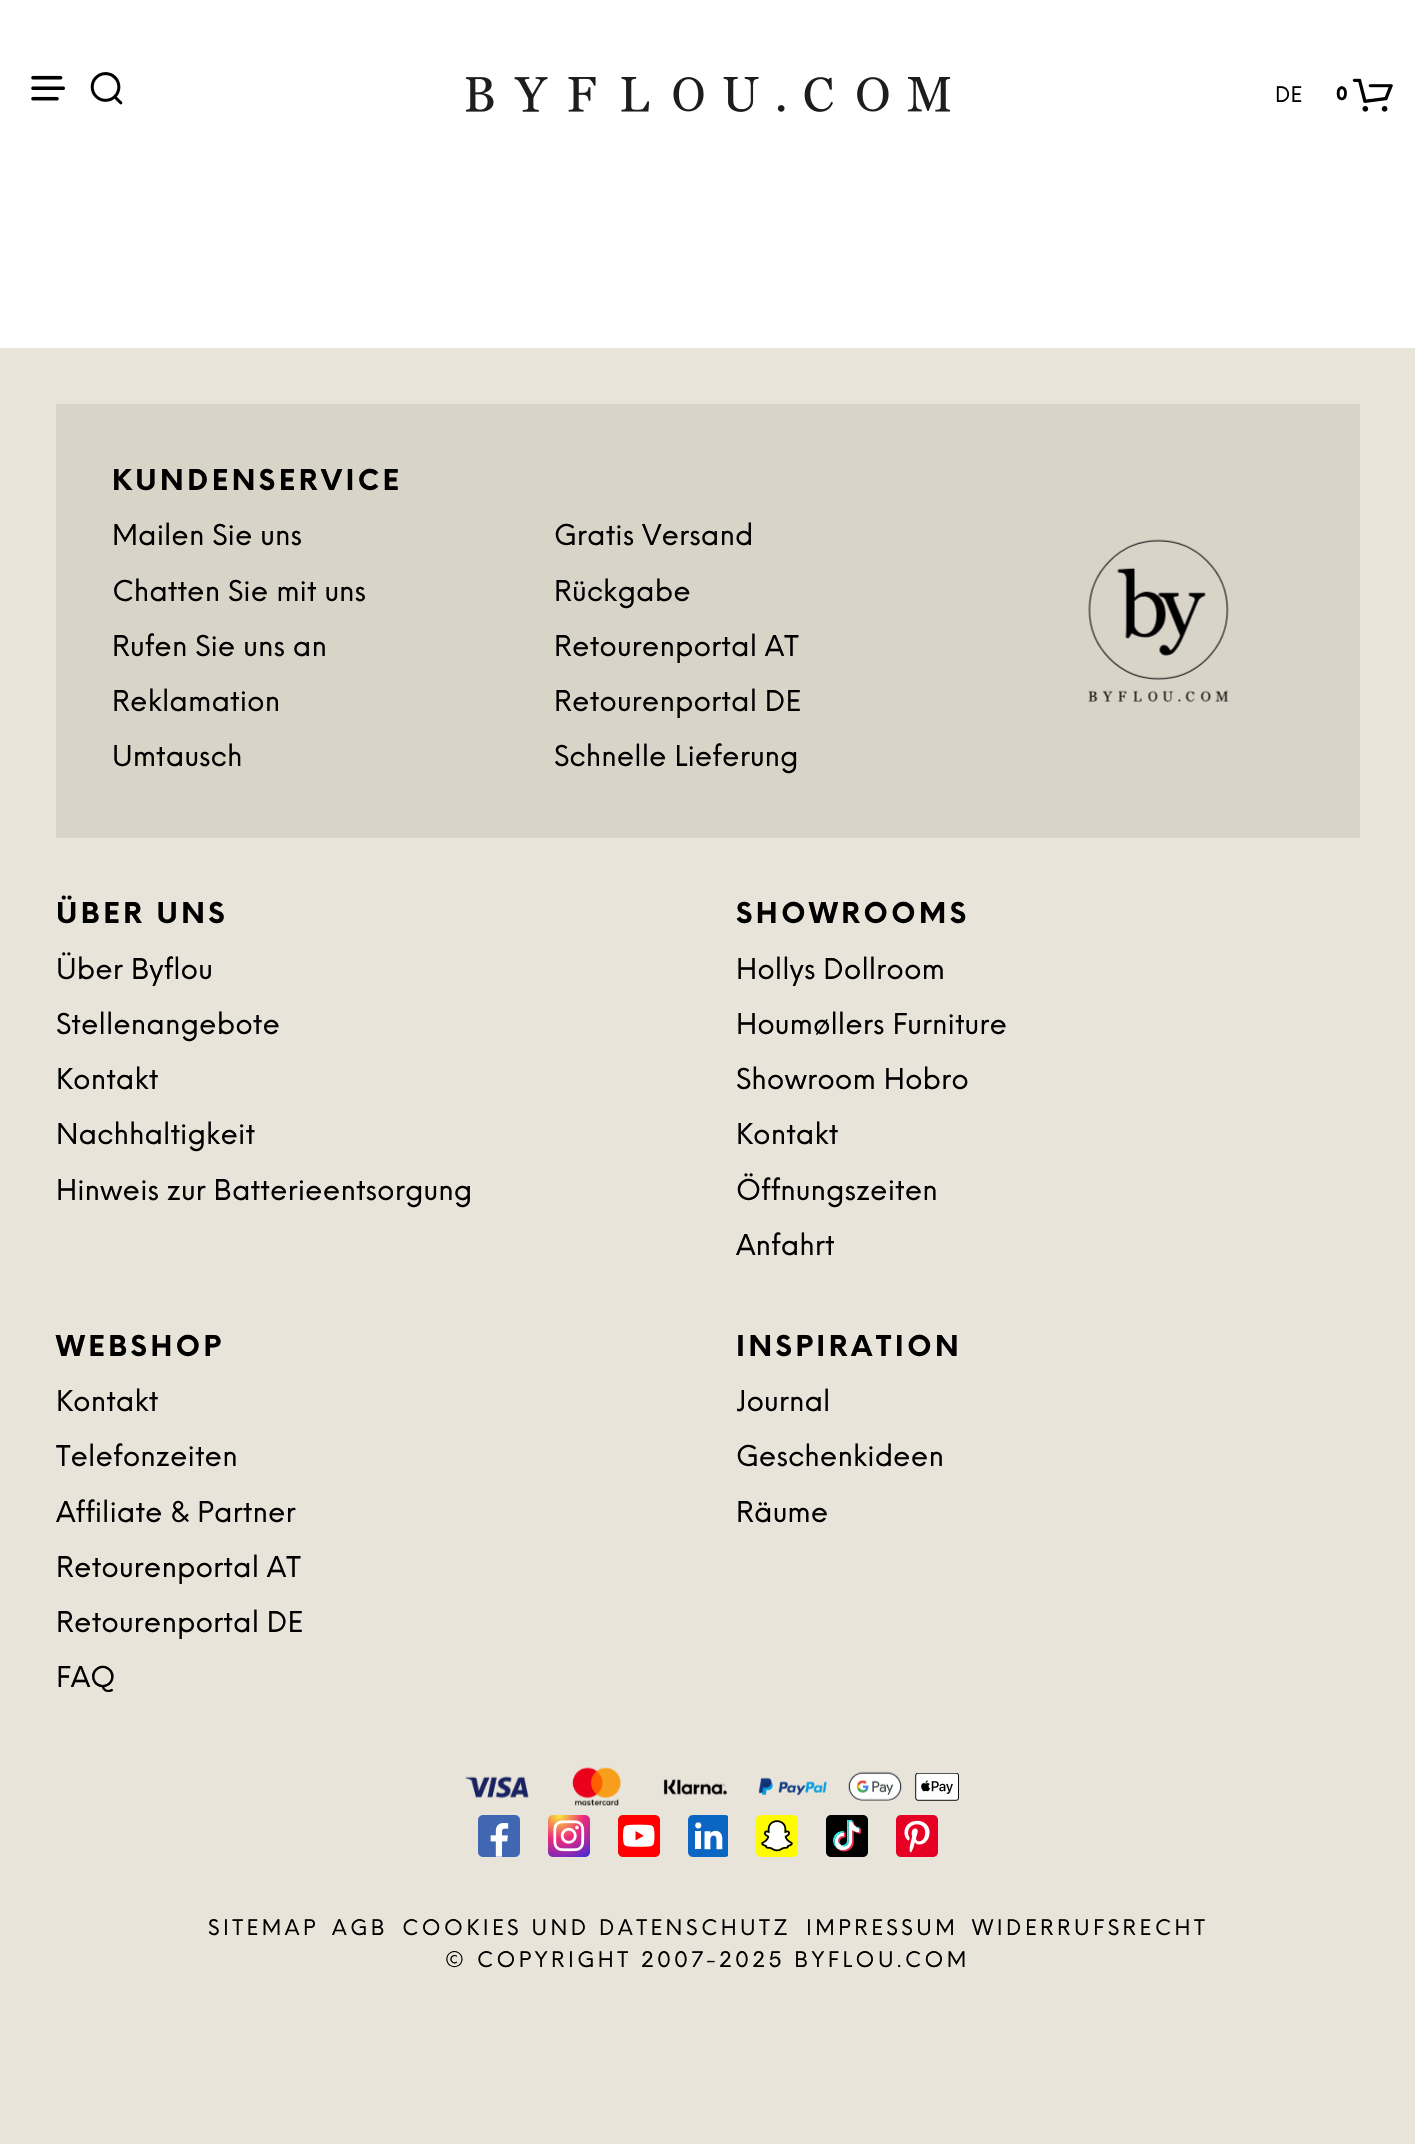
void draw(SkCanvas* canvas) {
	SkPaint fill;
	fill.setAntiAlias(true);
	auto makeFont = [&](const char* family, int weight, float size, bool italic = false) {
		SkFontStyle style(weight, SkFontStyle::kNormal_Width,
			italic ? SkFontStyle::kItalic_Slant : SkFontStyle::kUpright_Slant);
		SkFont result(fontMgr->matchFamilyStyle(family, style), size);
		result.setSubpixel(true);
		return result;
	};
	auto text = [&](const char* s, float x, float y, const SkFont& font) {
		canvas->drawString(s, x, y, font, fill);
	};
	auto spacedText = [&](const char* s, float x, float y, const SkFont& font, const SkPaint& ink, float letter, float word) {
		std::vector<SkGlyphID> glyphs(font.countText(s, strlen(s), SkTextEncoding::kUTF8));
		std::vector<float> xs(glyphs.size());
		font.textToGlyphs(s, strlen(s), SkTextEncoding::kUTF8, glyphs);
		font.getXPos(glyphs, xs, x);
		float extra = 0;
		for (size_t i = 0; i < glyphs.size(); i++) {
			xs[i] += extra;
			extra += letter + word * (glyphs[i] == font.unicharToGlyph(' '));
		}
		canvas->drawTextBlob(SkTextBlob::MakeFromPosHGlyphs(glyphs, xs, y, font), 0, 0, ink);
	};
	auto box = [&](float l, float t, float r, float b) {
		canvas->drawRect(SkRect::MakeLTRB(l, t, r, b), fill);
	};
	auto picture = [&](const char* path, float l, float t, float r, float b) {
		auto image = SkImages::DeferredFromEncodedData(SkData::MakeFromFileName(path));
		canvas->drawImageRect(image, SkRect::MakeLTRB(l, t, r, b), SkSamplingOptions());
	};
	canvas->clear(0xFFFFFFFF);
	picture("image0.png", 31, 75, 65, 101);
	picture("image1.png", 90, 72, 123, 105);
	picture("image2.png", 466, 77, 950, 112);
	picture("image3.png", 1352, 78, 1393, 112);
	fill.setColor(0xFFE8E4D9);
	box(0, 348, 1415, 2144);
	fill.setColor(0xFFD9D4C8);
	box(56, 404, 1360, 838);
	picture("image4.png", 1088, 539, 1229, 702);
	picture("image5.png", 465, 1776, 529, 1799);
	picture("image6.png", 572, 1767, 621, 1806);
	picture("image7.png", 663, 1779, 727, 1795);
	picture("image8.png", 758, 1777, 827, 1796);
	picture("image9.png", 848, 1771, 902, 1801);
	picture("image10.png", 915, 1773, 959, 1801);
	picture("image11.png", 478, 1815, 520, 1857);
	picture("image12.png", 548, 1815, 590, 1857);
	picture("image13.png", 618, 1815, 660, 1857);
	picture("image14.png", 688, 1815, 728, 1857);
	picture("image15.png", 756, 1815, 798, 1857);
	picture("image16.png", 826, 1815, 868, 1857);
	picture("image17.png", 896, 1815, 938, 1857);
	auto font1 = makeFont("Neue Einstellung", 400, 21);
	fill.setColor(0xFF000000);
	text("DE", 1275, 102, font1);
	auto font2 = makeFont("Neue Einstellung", 700, 18);
	text("0", 1336, 100, font2);
	auto font3 = makeFont("Neue Einstellung", 700, 28);
	spacedText("KUNDENSERVICE", 112, 490, font3, fill, 3.5f, 0);
	auto font4 = makeFont("Neue Einstellung", 400, 28);
	text("Mailen Sie uns", 112, 545, font4);
	text("Gratis Versand", 554, 545, font4);
	text("Chatten Sie mit uns", 112, 601, font4);
	text("Rückgabe", 554, 601, font4);
	text("Rufen Sie uns an", 112, 656, font4);
	text("Retourenportal AT", 554, 656, font4);
	text("Reklamation", 112, 711, font4);
	text("Retourenportal DE", 554, 711, font4);
	text("Umtausch", 112, 766, font4);
	text("Schnelle Lieferung", 554, 766, font4);
	spacedText("ÜBER UNS", 56, 923, font3, fill, 3.5f, 0);
	text("Über Byflou", 56, 979, font4);
	text("Stellenangebote", 56, 1034, font4);
	text("Kontakt", 56, 1089, font4);
	text("Nachhaltigkeit", 56, 1144, font4);
	text("Hinweis zur Batterieentsorgung", 56, 1200, font4);
	spacedText("SHOWROOMS", 736, 923, font3, fill, 3.5f, 0);
	text("Hollys Dollroom", 736, 979, font4);
	text("Houmøllers Furniture", 736, 1034, font4);
	text("Showroom Hobro", 736, 1089, font4);
	text("Kontakt", 736, 1144, font4);
	text("Öffnungszeiten", 736, 1200, font4);
	text("Anfahrt", 736, 1255, font4);
	spacedText("WEBSHOP", 56, 1356, font3, fill, 3.5f, 0);
	text("Kontakt", 56, 1411, font4);
	text("Telefonzeiten", 56, 1466, font4);
	text("Affiliate & Partner", 56, 1522, font4);
	text("Retourenportal AT", 56, 1577, font4);
	text("Retourenportal DE", 56, 1632, font4);
	text("FAQ", 56, 1687, font4);
	spacedText("INSPIRATION", 736, 1356, font3, fill, 3.5f, 0);
	text("Journal", 736, 1411, font4);
	text("Geschenkideen", 736, 1466, font4);
	text("Räume", 736, 1522, font4);
	spacedText("SITEMAP", 208, 1935, font1, fill, 3.5f, 0);
	spacedText("AGB", 332, 1935, font1, fill, 3.5f, 0);
	spacedText("COOKIES UND DATENSCHUTZ", 402, 1935, font1, fill, 3.5f, 0);
	spacedText("IMPRESSUM", 806, 1935, font1, fill, 3.5f, 0);
	spacedText("WIDERRUFSRECHT", 972, 1935, font1, fill, 3.5f, 0);
	spacedText("© COPYRIGHT 2007-2025 BYFLOU.COM", 445, 1967, font1, fill, 3.5f, 0);
}
